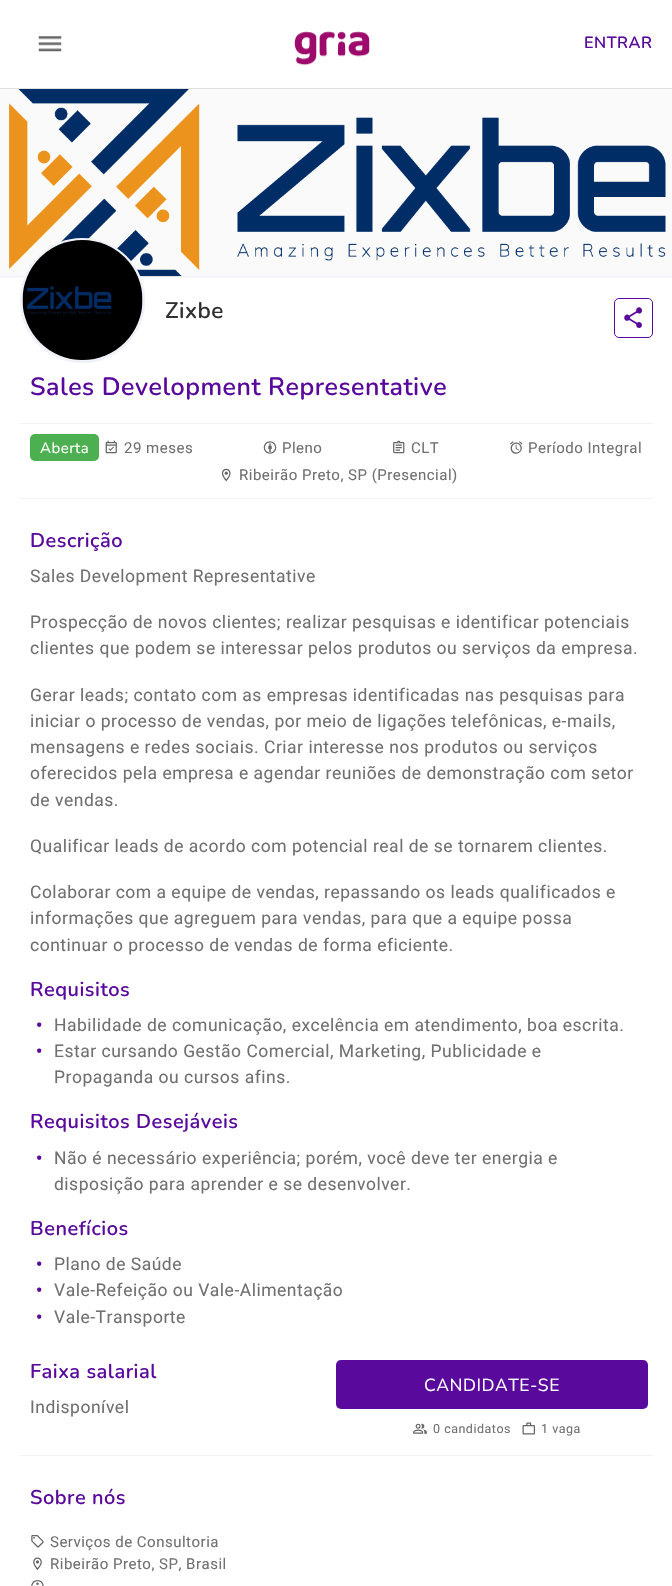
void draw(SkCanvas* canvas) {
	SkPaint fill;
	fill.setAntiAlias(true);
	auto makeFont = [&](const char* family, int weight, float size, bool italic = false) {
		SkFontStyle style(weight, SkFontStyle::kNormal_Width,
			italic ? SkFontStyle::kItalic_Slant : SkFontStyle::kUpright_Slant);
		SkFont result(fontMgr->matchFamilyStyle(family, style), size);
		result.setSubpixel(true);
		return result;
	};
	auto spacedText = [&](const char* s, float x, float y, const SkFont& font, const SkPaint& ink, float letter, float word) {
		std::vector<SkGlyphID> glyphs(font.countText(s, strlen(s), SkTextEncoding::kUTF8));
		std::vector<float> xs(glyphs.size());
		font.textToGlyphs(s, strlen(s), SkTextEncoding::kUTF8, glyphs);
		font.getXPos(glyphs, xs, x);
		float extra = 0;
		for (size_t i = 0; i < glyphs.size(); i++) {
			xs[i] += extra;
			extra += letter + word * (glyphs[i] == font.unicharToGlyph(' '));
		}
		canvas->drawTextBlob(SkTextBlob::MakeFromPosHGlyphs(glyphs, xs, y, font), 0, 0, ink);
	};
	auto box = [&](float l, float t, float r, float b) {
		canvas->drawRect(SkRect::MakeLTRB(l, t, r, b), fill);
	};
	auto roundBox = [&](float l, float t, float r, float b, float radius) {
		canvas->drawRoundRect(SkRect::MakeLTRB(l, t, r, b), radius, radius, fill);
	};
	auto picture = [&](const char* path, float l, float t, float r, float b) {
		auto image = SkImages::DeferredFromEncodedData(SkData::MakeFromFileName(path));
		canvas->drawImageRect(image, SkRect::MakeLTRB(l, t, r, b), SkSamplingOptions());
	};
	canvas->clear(0xFFFFFFFF);
	fill.setColor(0xFFE0E0E0);
	box(0, 88, 672, 89);
	picture("image0.png", 38, 36, 62, 52);
	picture("image1.png", 294, 31, 370, 66);
	fill.setColor(0xFFFAFAFA);
	box(0, 89, 672, 278);
	fill.setColor(0xFFF0F1F9);
	box(0, 276, 672, 277);
	picture("image2.png", 9, 89, 666, 277);
	fill.setStyle(SkPaint::kStroke_Style);
	fill.setStrokeWidth(3);
	canvas->drawCircle(82.5f, 300.5f, 61, fill);
	picture("image3.png", 22, 240, 143, 360);
	fill.setStrokeWidth(1);
	fill.setColor(0xFF590A9D);
	canvas->drawRoundRect(SkRect::MakeLTRB(614.5f, 298.5f, 652.5f, 337.5f), 4.5f, 4.5f, fill);
	picture("image4.png", 624, 307, 642, 328);
	fill.setStyle(SkPaint::kFill_Style);
	fill.setColor(0xFFF0F1F9);
	box(20, 423, 653, 424);
	box(20, 498, 653, 499);
	fill.setColor(0xFF4CAF50);
	roundBox(30, 434, 99, 461, 5);
	picture("image5.png", 105, 440, 117, 454);
	picture("image6.png", 263, 441, 277, 454);
	picture("image7.png", 393, 440, 405, 454);
	picture("image8.png", 510, 441, 523, 454);
	picture("image9.png", 221, 468, 231, 482);
	fill.setColor(0xFF590A9D);
	roundBox(336, 1360, 648, 1409, 5);
	picture("image10.png", 413, 1423, 427, 1434);
	picture("image11.png", 522, 1422, 535, 1435);
	fill.setColor(0xFFF0F1F9);
	box(20, 1455, 653, 1456);
	picture("image12.png", 31, 1535, 44, 1548);
	picture("image13.png", 33, 1557, 42, 1570);
	picture("image14.png", 31, 1580, 44, 1586);
	auto font1 = makeFont("Nunito", 200, 16.25f);
	fill.setColor(0xFF590A9D);
	spacedText("ENTRAR", 584, 48, font1, fill, 0.5f, 0);
	auto font2 = makeFont("Nunito", 200, 22.5f);
	fill.setColor(0xFF303030);
	spacedText("Zixbe", 165, 318, font2, fill, 0.5f, 0);
	auto font3 = makeFont("Nunito", 200, 25);
	fill.setColor(0xFF590A9D);
	spacedText("Sales Development Representative", 30, 395, font3, fill, 0.5f, 0);
	auto font4 = makeFont("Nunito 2", 200, 15);
	fill.setColor(0xFFFFFFFF);
	spacedText("Aberta", 40, 453, font4, fill, 0.5f, 0);
	auto font5 = makeFont("Roboto", 400, 15);
	fill.setColor(0xFF707070);
	spacedText("29 meses", 124, 453, font5, fill, 0.5f, 0);
	spacedText("Pleno", 282, 453, font5, fill, 0.5f, 0);
	spacedText("CLT", 411, 453, font5, fill, 0.5f, 0);
	spacedText("Período Integral", 528, 453, font5, fill, 0.5f, 0);
	spacedText("Ribeirão Preto, SP (Presencial)", 239, 480, font5, fill, 0.5f, 0);
	auto font6 = makeFont("Nunito", 200, 20);
	fill.setColor(0xFF590A9D);
	spacedText("Descrição", 30, 547, font6, fill, 0.5f, 0);
	auto font7 = makeFont("Roboto", 400, 17.5f);
	fill.setColor(0xFF707070);
	spacedText("Sales Development Representative", 30, 582, font7, fill, 0.5f, 0);
	spacedText("Prospecção de novos clientes; realizar pesquisas e identificar potenciais", 30, 628, font7, fill, 0.5f, 0);
	spacedText("clientes que podem se interessar pelos produtos ou serviços da empresa.", 30, 654, font7, fill, 0.5f, 0);
	spacedText("Gerar leads; contato com as empresas identificadas nas pesquisas para", 30, 701, font7, fill, 0.5f, 0);
	spacedText("iniciar o processo de vendas, por meio de ligações telefônicas, e-mails,", 30, 727, font7, fill, 0.5f, 0);
	spacedText("mensagens e redes sociais. Criar interesse nos produtos ou serviços", 30, 753, font7, fill, 0.5f, 0);
	spacedText("oferecidos pela empresa e agendar reuniões de demonstração com setor", 30, 779, font7, fill, 0.5f, 0);
	spacedText("de vendas.", 30, 806, font7, fill, 0.5f, 0);
	spacedText("Qualificar leads de acordo com potencial real de se tornarem clientes.", 30, 852, font7, fill, 0.5f, 0);
	spacedText("Colaborar com a equipe de vendas, repassando os leads qualificados e", 30, 898, font7, fill, 0.5f, 0);
	spacedText("informações que agreguem para vendas, para que a equipe possa", 30, 924, font7, fill, 0.5f, 0);
	spacedText("continuar o processo de vendas de forma eficiente.", 30, 951, font7, fill, 0.5f, 0);
	fill.setColor(0xFF590A9D);
	spacedText("Requisitos", 30, 996, font6, fill, 0.5f, 0);
	auto font8 = makeFont("Roboto", 700, 17.5f);
	spacedText("•", 36, 1031, font8, fill, 0.5f, 0);
	fill.setColor(0xFF707070);
	spacedText("Habilidade de comunicação, excelência em atendimento, boa escrita.", 54, 1031, font7, fill, 0.5f, 0);
	fill.setColor(0xFF590A9D);
	spacedText("•", 36, 1057, font8, fill, 0.5f, 0);
	fill.setColor(0xFF707070);
	spacedText("Estar cursando Gestão Comercial, Marketing, Publicidade e", 54, 1057, font7, fill, 0.5f, 0);
	spacedText("Propaganda ou cursos afins.", 54, 1083, font7, fill, 0.5f, 0);
	fill.setColor(0xFF590A9D);
	spacedText("Requisitos Desejáveis", 30, 1128, font6, fill, 0.5f, 0);
	spacedText("•", 36, 1164, font8, fill, 0.5f, 0);
	fill.setColor(0xFF707070);
	spacedText("Não é necessário experiência; porém, você deve ter energia e", 54, 1164, font7, fill, 0.5f, 0);
	spacedText("disposição para aprender e se desenvolver.", 54, 1190, font7, fill, 0.5f, 0);
	fill.setColor(0xFF590A9D);
	spacedText("Benefícios", 30, 1235, font6, fill, 0.5f, 0);
	spacedText("•", 36, 1270, font8, fill, 0.5f, 0);
	fill.setColor(0xFF707070);
	spacedText("Plano de Saúde", 54, 1270, font7, fill, 0.5f, 0);
	fill.setColor(0xFF590A9D);
	spacedText("•", 36, 1296, font8, fill, 0.5f, 0);
	fill.setColor(0xFF707070);
	spacedText("Vale-Refeição ou Vale-Alimentação", 54, 1296, font7, fill, 0.5f, 0);
	fill.setColor(0xFF590A9D);
	spacedText("•", 36, 1323, font8, fill, 0.5f, 0);
	fill.setColor(0xFF707070);
	spacedText("Vale-Transporte", 54, 1323, font7, fill, 0.5f, 0);
	fill.setColor(0xFF590A9D);
	spacedText("Faixa salarial", 30, 1378, font6, fill, 0.5f, 0);
	fill.setColor(0xFF707070);
	spacedText("Indisponível", 30, 1413, font7, fill, 0.5f, 0);
	auto font9 = makeFont("Nunito 2", 200, 17.5f);
	fill.setColor(0xFFFFFFFF);
	spacedText("CANDIDATE-SE", 424, 1391, font9, fill, 0.5f, 0);
	auto font10 = makeFont("Roboto", 400, 12.5f);
	fill.setColor(0xFF707070);
	spacedText("0 candidatos", 433, 1433, font10, fill, 0.5f, 0);
	spacedText("1 vaga", 541, 1433, font10, fill, 0.5f, 0);
	fill.setColor(0xFF590A9D);
	spacedText("Sobre nós", 30, 1504, font6, fill, 0.5f, 0);
	fill.setColor(0xFF707070);
	spacedText("Serviços de Consultoria", 50, 1547, font5, fill, 0.5f, 0);
	spacedText("Ribeirão Preto, SP, Brasil", 50, 1569, font5, fill, 0.5f, 0);
}
